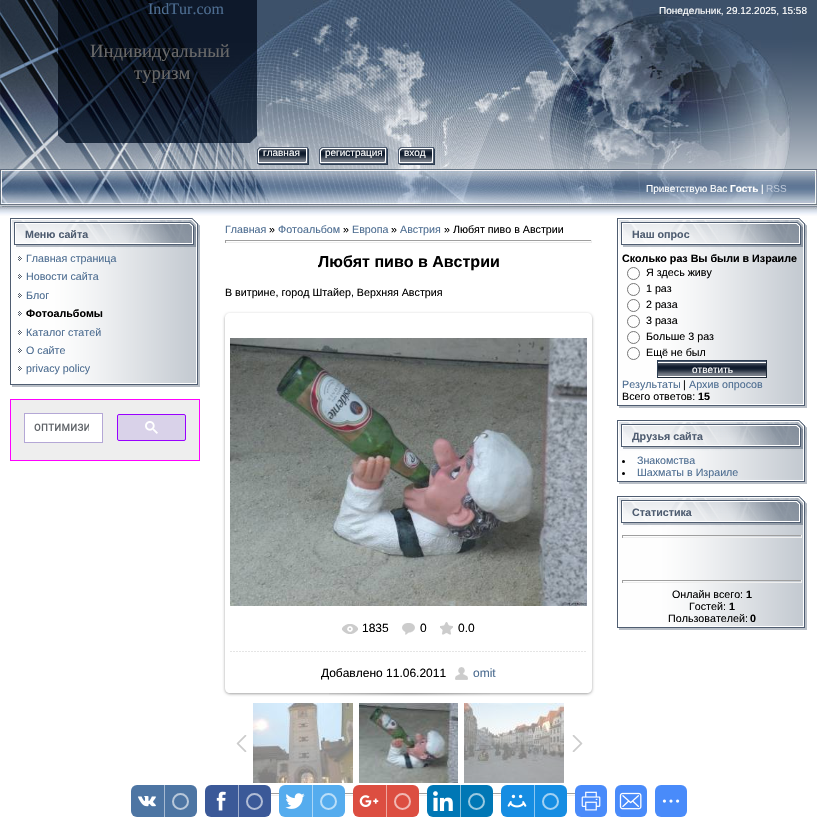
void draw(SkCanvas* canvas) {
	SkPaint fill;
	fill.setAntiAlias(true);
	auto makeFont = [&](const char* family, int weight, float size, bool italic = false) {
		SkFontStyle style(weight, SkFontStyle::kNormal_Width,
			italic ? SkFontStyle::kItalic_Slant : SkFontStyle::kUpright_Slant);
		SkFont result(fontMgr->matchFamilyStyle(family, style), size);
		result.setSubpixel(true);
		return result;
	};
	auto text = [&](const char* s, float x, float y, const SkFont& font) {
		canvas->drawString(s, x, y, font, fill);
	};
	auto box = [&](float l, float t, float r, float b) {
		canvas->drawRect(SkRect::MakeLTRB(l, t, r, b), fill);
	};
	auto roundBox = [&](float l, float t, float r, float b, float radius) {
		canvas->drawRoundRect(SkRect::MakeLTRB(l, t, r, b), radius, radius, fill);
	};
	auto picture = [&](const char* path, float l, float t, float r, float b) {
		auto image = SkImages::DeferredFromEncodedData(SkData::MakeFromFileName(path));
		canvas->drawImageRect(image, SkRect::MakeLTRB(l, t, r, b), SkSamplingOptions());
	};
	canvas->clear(0xFFFFFFFF);
	picture("image0.png", 0, 0, 817, 216);
	picture("image1.png", 0, 0, 58, 143);
	picture("image2.png", 58, 0, 257, 143);
	picture("image3.png", 257, 0, 792, 143);
	picture("image4.png", 0, 143, 58, 169);
	picture("image5.png", 58, 143, 257, 169);
	picture("image6.png", 257, 143, 790, 169);
	picture("image7.png", 261, 147, 309, 165);
	picture("image8.png", 257, 147, 261, 165);
	picture("image9.png", 305, 147, 309, 164);
	picture("image10.png", 323, 147, 388, 165);
	picture("image8.png", 319, 147, 323, 165);
	picture("image9.png", 384, 147, 388, 164);
	picture("image11.png", 402, 147, 435, 165);
	picture("image8.png", 398, 147, 402, 165);
	picture("image9.png", 431, 147, 435, 164);
	picture("image12.png", 0, 169, 30, 209);
	picture("image13.png", 30, 169, 787, 209);
	picture("image14.png", 787, 169, 817, 209);
	picture("image15.png", 10, 218, 200, 249);
	picture("image16.png", 10, 249, 200, 381);
	picture("image17.png", 18, 256, 22, 261);
	picture("image17.png", 18, 274, 22, 279);
	picture("image17.png", 18, 293, 22, 298);
	picture("image17.png", 18, 311, 22, 316);
	picture("image17.png", 18, 330, 22, 335);
	picture("image17.png", 18, 348, 22, 353);
	picture("image17.png", 18, 366, 22, 371);
	picture("image18.png", 10, 381, 200, 387);
	fill.setColor(0xFFEEEEEE);
	canvas->drawRect(SkRect::MakeLTRB(10.5f, 399.5f, 199.5f, 460.5f), fill);
	fill.setStyle(SkPaint::kStroke_Style);
	fill.setStrokeWidth(1);
	fill.setColor(0xFFFF00FF);
	canvas->drawRect(SkRect::MakeLTRB(10.5f, 399.5f, 199.5f, 460.5f), fill);
	fill.setStyle(SkPaint::kFill_Style);
	fill.setColor(0xFFFFFFFF);
	canvas->drawRect(SkRect::MakeLTRB(24.5f, 413.5f, 102.5f, 442.5f), fill);
	fill.setStyle(SkPaint::kStroke_Style);
	fill.setColor(0xFFB4A7D6);
	canvas->drawRect(SkRect::MakeLTRB(24.5f, 413.5f, 102.5f, 442.5f), fill);
	picture("image19.png", 34, 423, 89, 431);
	fill.setStyle(SkPaint::kFill_Style);
	fill.setColor(0xFFD9D2E9);
	canvas->drawRoundRect(SkRect::MakeLTRB(117.5f, 414.5f, 185.5f, 440.5f), 1.5f, 1.5f, fill);
	fill.setStyle(SkPaint::kStroke_Style);
	fill.setColor(0xFF9900FF);
	canvas->drawRoundRect(SkRect::MakeLTRB(117.5f, 414.5f, 185.5f, 440.5f), 1.5f, 1.5f, fill);
	picture("image20.png", 145, 421, 158, 434);
	fill.setStyle(SkPaint::kFill_Style);
	fill.setColor(0xFF9F9F9F);
	box(225, 240, 592, 241);
	fill.setColor(0xFFEEEEEE);
	box(591, 240, 592, 243);
	box(225, 242, 592, 243);
	fill.setColor(0xFF9F9F9F);
	box(225, 240, 226, 243);
	canvas->save();
	canvas->clipPath(SkPathBuilder(SkPathFillType::kEvenOdd).moveTo(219, 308).lineTo(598, 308).lineTo(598, 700).lineTo(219, 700).close().moveTo(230, 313).lineTo(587, 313).cubicTo(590, 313, 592, 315, 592, 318).lineTo(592, 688).cubicTo(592, 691, 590, 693, 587, 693).lineTo(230, 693).cubicTo(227, 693, 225, 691, 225, 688).lineTo(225, 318).cubicTo(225, 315, 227, 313, 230, 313).close().detach(), true);
	fill.setColor(0x5E000000);
	fill.setMaskFilter(SkMaskFilter::MakeBlur(kNormal_SkBlurStyle, 1.5f));
	canvas->drawRoundRect(SkRect::MakeLTRB(225, 314, 592, 694), 5, 5, fill);
	fill.setMaskFilter(nullptr);
	canvas->restore();
	picture("image21.png", 230, 338, 587, 606);
	picture("image22.png", 342, 624, 358, 634);
	picture("image23.png", 402, 623, 415, 635);
	picture("image24.png", 440, 622, 453, 635);
	picture("image25.png", 230, 651, 586, 652);
	picture("image26.png", 455, 667, 468, 680);
	picture("image27.png", 329, 693, 490, 696);
	picture("image28.png", 236, 735, 247, 752);
	picture("image29.png", 253, 703, 353, 783);
	picture("image30.png", 359, 703, 458, 783);
	picture("image31.png", 464, 703, 564, 783);
	picture("image32.png", 572, 735, 583, 752);
	fill.setColor(0xFF9F9F9F);
	box(271, 793, 575, 794);
	fill.setColor(0xFFEEEEEE);
	box(271, 795, 575, 796);
	picture("image15.png", 617, 218, 807, 249);
	picture("image33.png", 617, 249, 807, 402);
	fill.setStyle(SkPaint::kStroke_Style);
	fill.setColor(0xFF767676);
	canvas->drawCircle(633.5f, 273.5f, 6, fill);
	canvas->drawCircle(633.5f, 289.5f, 6, fill);
	canvas->drawCircle(633.5f, 305.5f, 6, fill);
	canvas->drawCircle(633.5f, 321.5f, 6, fill);
	canvas->drawCircle(633.5f, 337.5f, 6, fill);
	canvas->drawCircle(633.5f, 353.5f, 6, fill);
	picture("image34.png", 658, 360, 766, 377);
	fill.setStyle(SkPaint::kFill_Style);
	fill.setColor(0xFF1D2937);
	box(766, 360, 767, 378);
	box(657, 377, 767, 378);
	fill.setColor(0xFF2C3D52);
	box(657, 360, 658, 378);
	picture("image18.png", 617, 402, 807, 408);
	picture("image15.png", 617, 420, 807, 451);
	picture("image35.png", 617, 451, 807, 478);
	fill.setColor(0xFF000000);
	canvas->drawCircle(623.5f, 461.5f, 1.5f, fill);
	canvas->drawCircle(623.5f, 473.5f, 1.5f, fill);
	picture("image15.png", 617, 496, 807, 527);
	picture("image36.png", 617, 527, 807, 624);
	fill.setColor(0xFF9F9F9F);
	box(622, 535, 802, 536);
	fill.setColor(0xFFEEEEEE);
	box(801, 535, 802, 538);
	box(622, 537, 802, 538);
	fill.setColor(0xFF9F9F9F);
	box(622, 535, 623, 538);
	box(622, 580, 802, 581);
	fill.setColor(0xFFEEEEEE);
	box(801, 580, 802, 583);
	box(622, 582, 802, 583);
	fill.setColor(0xFF9F9F9F);
	box(622, 580, 623, 583);
	picture("image18.png", 617, 624, 807, 630);
	fill.setColor(0xFF4D75A3);
	roundBox(131, 785, 197, 817, 6);
	picture("image37.png", 138, 796, 156, 807);
	fill.setColor(0xFFA6BAD1);
	box(164, 785, 165, 817);
	fill.setStyle(SkPaint::kStroke_Style);
	fill.setStrokeWidth(2);
	fill.setColor(0xFFB8C8DA);
	canvas->drawCircle(180.5f, 801.5f, 7.5f, fill);
	fill.setStyle(SkPaint::kFill_Style);
	fill.setColor(0xFF3B5998);
	roundBox(205, 785, 271, 817, 6);
	picture("image38.png", 216, 791, 226, 811);
	fill.setColor(0xFF9DACCC);
	box(238, 785, 239, 817);
	fill.setStyle(SkPaint::kStroke_Style);
	fill.setColor(0xFFB1BDD6);
	canvas->drawCircle(254.5f, 801.5f, 7.5f, fill);
	fill.setStyle(SkPaint::kFill_Style);
	fill.setColor(0xFF55ACEE);
	roundBox(279, 785, 345, 817, 6);
	picture("image39.png", 285, 793, 305, 809);
	fill.setColor(0xFFAAD6F7);
	box(312, 785, 313, 817);
	fill.setStyle(SkPaint::kStroke_Style);
	fill.setColor(0xFFBBDEF8);
	canvas->drawCircle(328.5f, 801.5f, 7.5f, fill);
	fill.setStyle(SkPaint::kFill_Style);
	fill.setColor(0xFFDC4E41);
	roundBox(353, 785, 419, 817, 6);
	picture("image40.png", 359, 795, 379, 807);
	fill.setColor(0xFFEEA7A0);
	box(386, 785, 387, 817);
	fill.setStyle(SkPaint::kStroke_Style);
	fill.setColor(0xFFF1B8B3);
	canvas->drawCircle(402.5f, 801.5f, 7.5f, fill);
	fill.setStyle(SkPaint::kFill_Style);
	fill.setColor(0xFF0077B5);
	roundBox(427, 785, 493, 817, 6);
	picture("image41.png", 433, 791, 453, 811);
	fill.setColor(0xFF80BBDA);
	box(460, 785, 461, 817);
	fill.setStyle(SkPaint::kStroke_Style);
	fill.setColor(0xFF99C9E1);
	canvas->drawCircle(476.5f, 801.5f, 7.5f, fill);
	fill.setStyle(SkPaint::kFill_Style);
	fill.setColor(0xFF168DE2);
	roundBox(501, 785, 567, 817, 6);
	picture("image42.png", 507, 794, 527, 808);
	fill.setColor(0xFF8BC6F1);
	box(534, 785, 535, 817);
	fill.setStyle(SkPaint::kStroke_Style);
	fill.setColor(0xFFA2D1F3);
	canvas->drawCircle(550.5f, 801.5f, 7.5f, fill);
	fill.setStyle(SkPaint::kFill_Style);
	fill.setColor(0xFF498BFA);
	roundBox(575, 785, 607, 817, 6);
	picture("image43.png", 581, 791, 601, 811);
	roundBox(615, 785, 647, 817, 6);
	picture("image44.png", 619, 792, 642, 810);
	roundBox(655, 785, 687, 817, 6);
	picture("image45.png", 662, 799, 680, 803);
	auto font1 = makeFont("Liberation Serif", 400, 16);
	fill.setColor(0xFF4D6D91);
	text("IndTur.com", 148, 14, font1);
	auto font2 = makeFont("Liberation Serif", 400, 18.75f);
	fill.setColor(0xFF696969);
	text("Индивидуальный", 90, 57, font2);
	text("туризм", 134, 79, font2);
	auto font3 = makeFont("Liberation Sans", 400, 10);
	fill.setColor(0xFFFFFFFF);
	text("Понедельник, 29.12.2025, 15:58", 659, 14, font3);
	text("главная", 263, 156, font3);
	text("регистрация", 325, 156, font3);
	text("вход", 404, 156, font3);
	text("Приветствую Вас", 646, 192, font3);
	auto font4 = makeFont("Liberation Sans", 700, 10);
	text("Гость", 730, 192, font4);
	text("|", 761, 192, font3);
	fill.setColor(0xFFBDC8D8);
	text("RSS", 766, 192, font3);
	auto font5 = makeFont("Liberation Sans", 700, 10.7f);
	fill.setColor(0xFF4F5D71);
	text("Меню сайта", 25, 238, font5);
	auto font6 = makeFont("Liberation Sans", 400, 10.7f);
	fill.setColor(0xFF4D6D91);
	text("Главная страница", 26, 262, font6);
	text("Новости сайта", 26, 280, font6);
	text("Блог", 26, 299, font6);
	fill.setColor(0xFF000000);
	text("Фотоальбомы", 26, 317, font5);
	fill.setColor(0xFF4D6D91);
	text("Каталог статей", 26, 336, font6);
	text("О сайте", 26, 354, font6);
	text("privacy policy", 26, 372, font6);
	text("Главная", 225, 233, font6);
	fill.setColor(0xFF000000);
	text("»", 269, 233, font6);
	fill.setColor(0xFF4D6D91);
	text("Фотоальбом", 278, 233, font6);
	fill.setColor(0xFF000000);
	text("»", 343, 233, font6);
	fill.setColor(0xFF4D6D91);
	text("Европа", 352, 233, font6);
	fill.setColor(0xFF000000);
	text("»", 391, 233, font6);
	fill.setColor(0xFF4D6D91);
	text("Австрия", 400, 233, font6);
	fill.setColor(0xFF000000);
	text("» Любят пиво в Австрии", 444, 233, font6);
	auto font7 = makeFont("Liberation Sans", 700, 16);
	text("Любят пиво в Австрии", 318, 267, font7);
	text("В витрине, город Штайер, Верхняя Австрия", 225, 296, font6);
	auto font8 = makeFont("Liberation Sans", 400, 12);
	text("1835", 362, 632, font8);
	text("0", 420, 632, font8);
	text("0.0", 458, 632, font8);
	text("Добавлено 11.06.2011", 321, 677, font8);
	fill.setColor(0xFF4D6D91);
	text("omit", 473, 677, font8);
	fill.setColor(0xFF4F5D71);
	text("Наш опрос", 632, 238, font5);
	fill.setColor(0xFF000000);
	text("Сколько раз Вы были в Израиле", 622, 262, font5);
	text("Я здесь живу", 646, 276, font6);
	text("1 раз", 646, 292, font6);
	text("2 раза", 646, 308, font6);
	text("3 раза", 646, 324, font6);
	text("Больше 3 раз", 646, 340, font6);
	text("Ещё не был", 646, 356, font6);
	fill.setColor(0xFFFFFFFF);
	text("ответить", 692, 373, font3);
	fill.setColor(0xFF4D6D91);
	text("Результаты", 622, 388, font6);
	fill.setColor(0xFF000000);
	text("|", 683, 388, font6);
	fill.setColor(0xFF4D6D91);
	text("Архив опросов", 689, 388, font6);
	fill.setColor(0xFF000000);
	text("Всего ответов:", 622, 400, font6);
	text("15", 698, 400, font5);
	fill.setColor(0xFF4F5D71);
	text("Друзья сайта", 632, 440, font5);
	fill.setColor(0xFF4D6D91);
	text("Знакомства", 637, 464, font6);
	text("Шахматы в Израиле", 637, 476, font6);
	picture("image18.png", 617, 478, 807, 484);
	fill.setColor(0xFF4F5D71);
	text("Статистика", 632, 516, font5);
	fill.setColor(0xFF000000);
	text("Онлайн всего:", 672, 598, font6);
	text("1", 746, 598, font5);
	text("Гостей:", 689, 610, font6);
	text("1", 729, 610, font5);
	text("Пользователей:", 668, 622, font6);
	text("0", 750, 622, font5);
}
